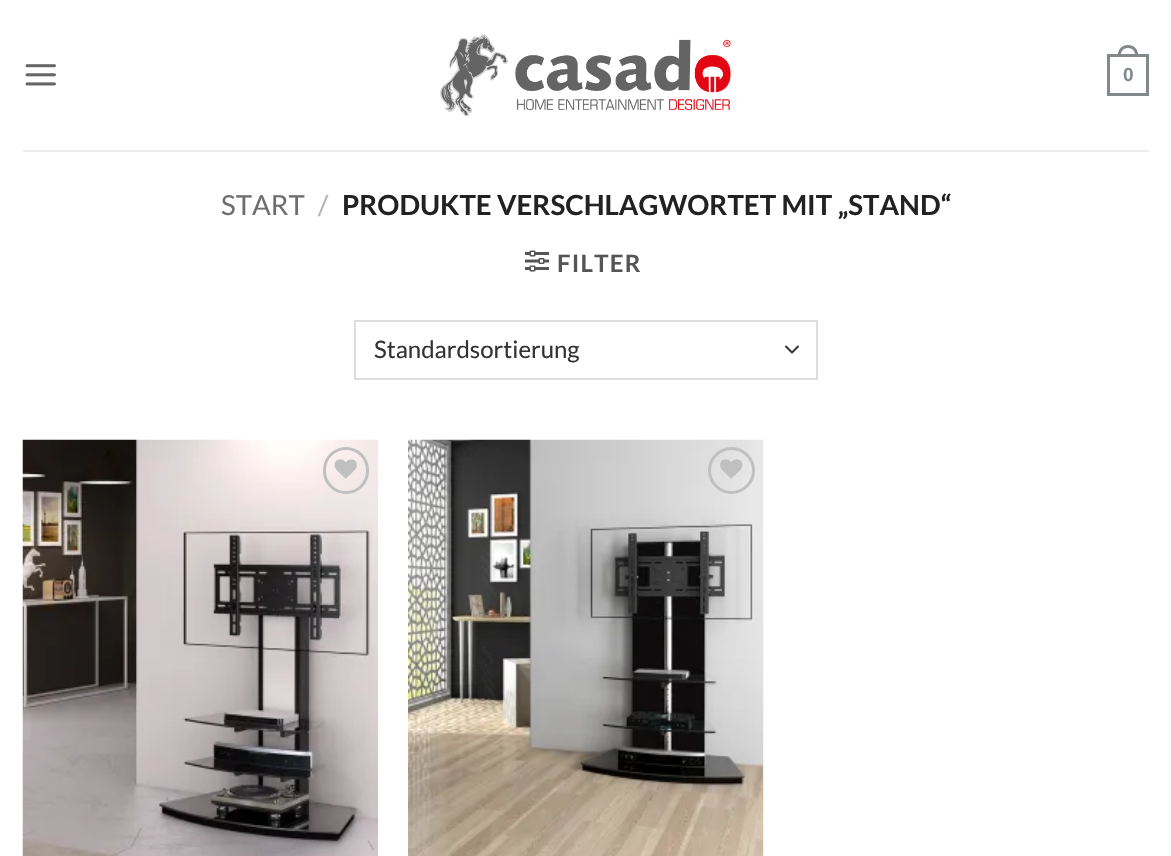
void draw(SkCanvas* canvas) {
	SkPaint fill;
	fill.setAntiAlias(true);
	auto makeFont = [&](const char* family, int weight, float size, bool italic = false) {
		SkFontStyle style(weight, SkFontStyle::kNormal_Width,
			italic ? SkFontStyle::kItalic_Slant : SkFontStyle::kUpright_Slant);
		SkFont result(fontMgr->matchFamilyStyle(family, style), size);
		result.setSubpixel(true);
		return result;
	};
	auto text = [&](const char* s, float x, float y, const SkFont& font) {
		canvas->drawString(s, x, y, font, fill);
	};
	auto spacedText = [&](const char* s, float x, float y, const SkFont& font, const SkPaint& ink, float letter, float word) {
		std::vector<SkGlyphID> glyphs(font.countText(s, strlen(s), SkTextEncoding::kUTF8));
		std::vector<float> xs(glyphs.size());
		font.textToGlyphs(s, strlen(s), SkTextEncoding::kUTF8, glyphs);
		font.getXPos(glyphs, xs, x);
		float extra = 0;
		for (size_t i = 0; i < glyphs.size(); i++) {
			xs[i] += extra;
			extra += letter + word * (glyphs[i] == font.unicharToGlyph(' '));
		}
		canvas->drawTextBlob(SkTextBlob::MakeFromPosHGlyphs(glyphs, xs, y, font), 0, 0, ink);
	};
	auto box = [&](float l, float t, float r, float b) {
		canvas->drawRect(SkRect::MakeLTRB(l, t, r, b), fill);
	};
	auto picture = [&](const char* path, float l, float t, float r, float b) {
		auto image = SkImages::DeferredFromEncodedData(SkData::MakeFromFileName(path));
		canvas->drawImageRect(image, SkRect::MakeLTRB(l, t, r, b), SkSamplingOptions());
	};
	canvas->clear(0xFFFFFFFF);
	picture("image0.png", 25, 64, 56, 86);
	picture("image1.png", 440, 34, 731, 117);
	fill.setStyle(SkPaint::kStroke_Style);
	fill.setStrokeWidth(3);
	fill.setColor(0xFF83898A);
	canvas->drawRect(SkRect::MakeLTRB(1108.5f, 55.5f, 1147.5f, 94.5f), fill);
	fill.setStyle(SkPaint::kFill_Style);
	canvas->drawPath(SkPathBuilder(SkPathFillType::kEvenOdd).moveTo(1128, 45).cubicTo(1135, 45, 1138.5f, 50.5f, 1138.5f, 57).lineTo(1117.5f, 57).cubicTo(1117.5f, 50.5f, 1121, 45, 1128, 45).close().moveTo(1128, 48).cubicTo(1133.5f, 48, 1135.5f, 52.5f, 1135.5f, 57).lineTo(1120.5f, 57).cubicTo(1120.5f, 52.5f, 1122.5f, 48, 1128, 48).close().detach(), fill);
	fill.setColor(0xFFEEEEEE);
	box(23, 150, 1149, 152);
	picture("image2.png", 525, 250, 549, 272);
	fill.setStyle(SkPaint::kStroke_Style);
	fill.setStrokeWidth(2);
	fill.setStrokeCap(SkPaint::kRound_Cap);
	fill.setStrokeJoin(SkPaint::kRound_Join);
	fill.setColor(0xFF333333);
	canvas->drawPath(SkPathBuilder().moveTo(786, 346.5f).lineTo(792, 352.5f).lineTo(798, 346.5f).detach(), fill);
	fill.setStrokeCap(SkPaint::kButt_Cap);
	fill.setStrokeJoin(SkPaint::kMiter_Join);
	fill.setColor(0xFFDDDDDD);
	canvas->drawRect(SkRect::MakeLTRB(355, 321, 817, 379), fill);
	picture("image3.png", 22, 439, 378, 856);
	fill.setStrokeWidth(3);
	fill.setColor(0xFFC0C0C0);
	canvas->drawRoundRect(SkRect::MakeLTRB(324.5f, 448.5f, 367.5f, 492.5f), 21.5f, 21.5f, fill);
	picture("image4.png", 334, 459, 357, 479);
	picture("image5.png", 408, 439, 764, 856);
	canvas->drawCircle(731.5f, 470.5f, 22, fill);
	picture("image6.png", 720, 459, 743, 479);
	auto font1 = makeFont("Liberation Sans", 700, 19);
	fill.setStyle(SkPaint::kFill_Style);
	fill.setColor(0xFF83898A);
	text("0", 1123, 81, font1);
	auto font2 = makeFont("Lato", 400, 27.6f);
	fill.setColor(0xFF6E6E6E);
	text("START", 221, 215, font2);
	fill.setColor(0xFFB2B2B2);
	text("/", 318, 215, font2);
	auto font3 = makeFont("Lato", 700, 27.6f);
	fill.setColor(0xFF222222);
	text("PRODUKTE VERSCHLAGWORTET MIT „STAND“", 342, 215, font3);
	auto font4 = makeFont("Lato", 700, 24);
	fill.setColor(0xFF555555);
	spacedText("FILTER", 557, 272, font4, fill, 1.25f, 0);
	auto font5 = makeFont("Lato", 400, 24);
	fill.setColor(0xFF333333);
	text("Standardsortierung", 374, 358, font5);
}
